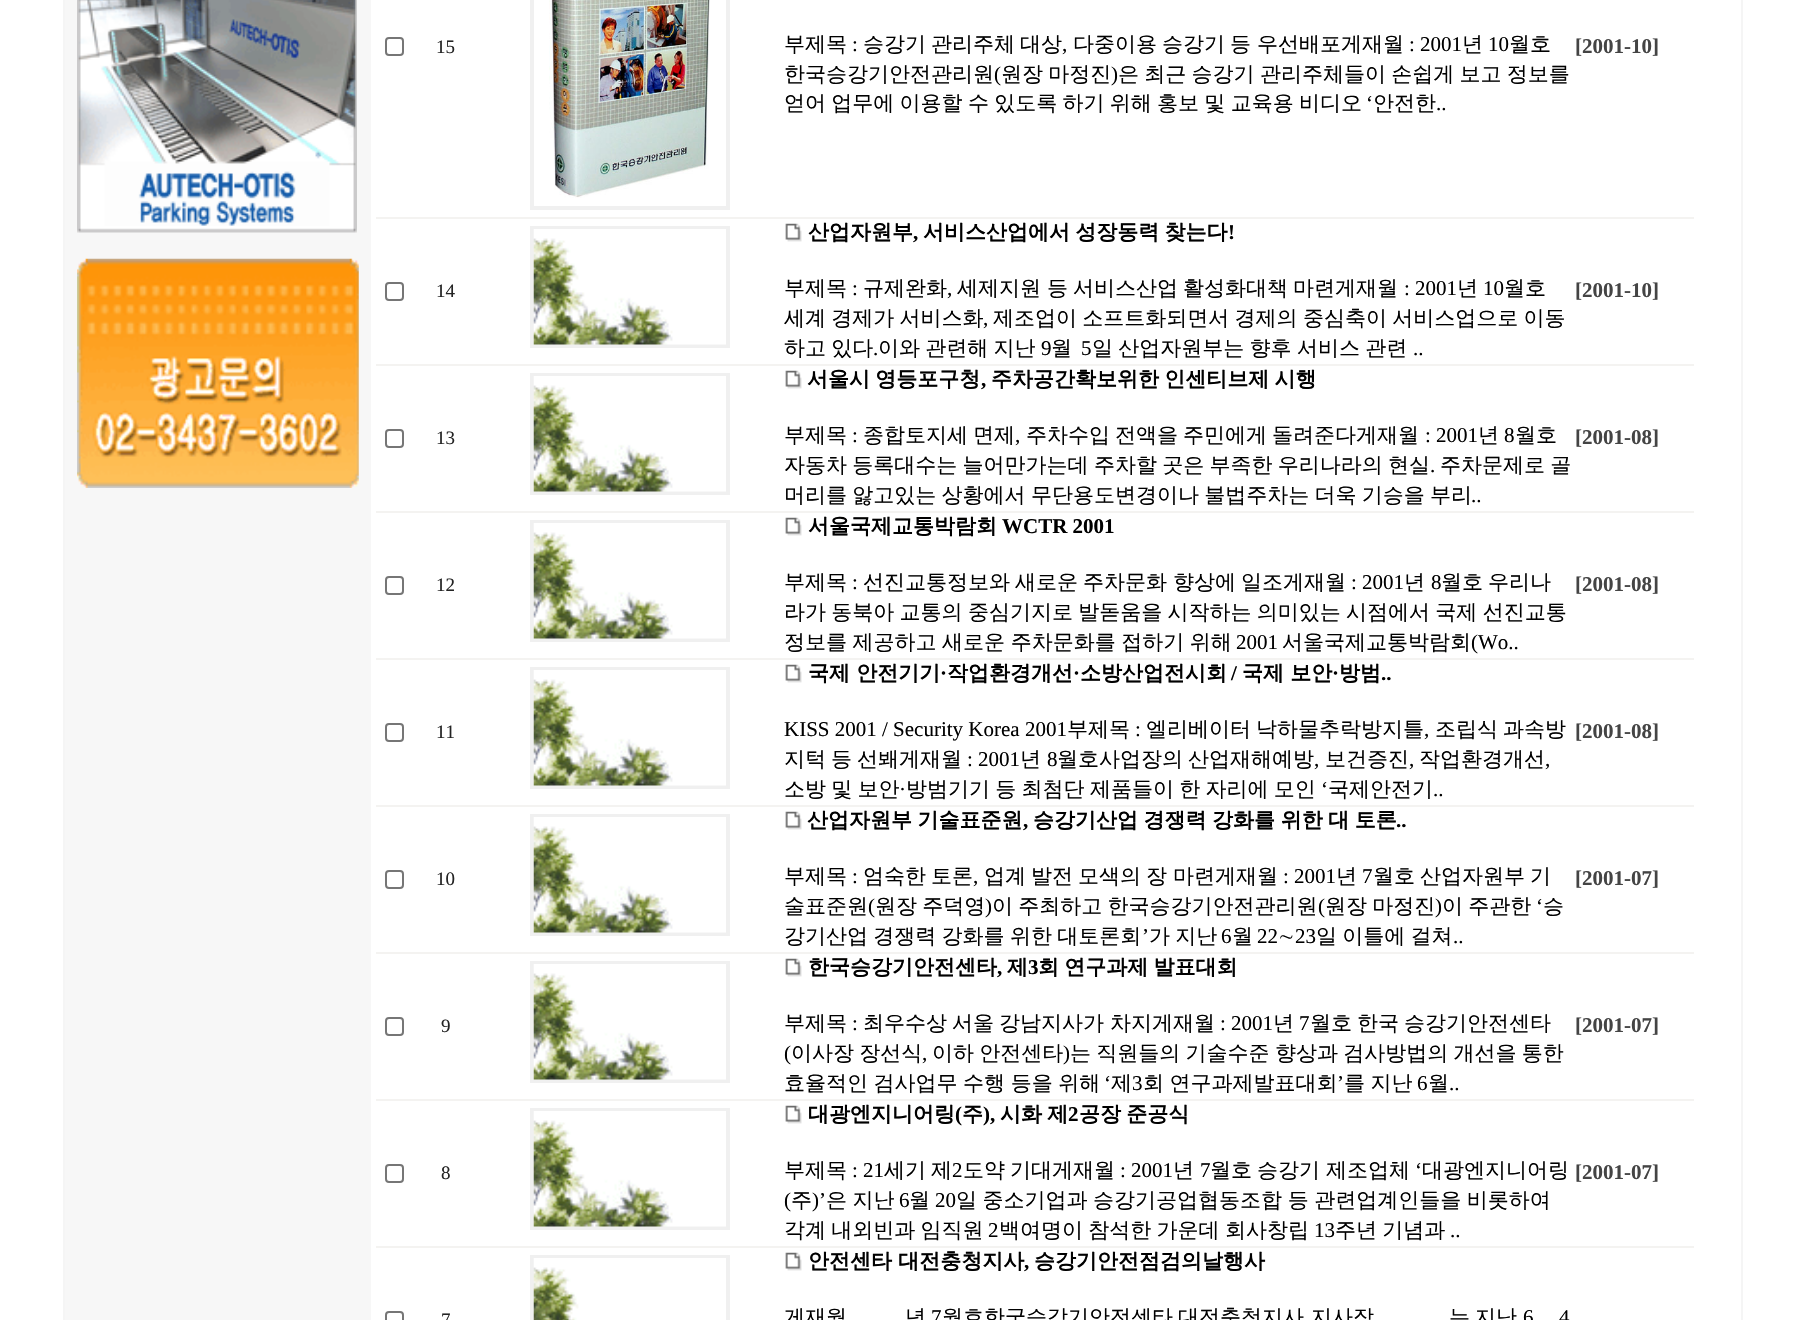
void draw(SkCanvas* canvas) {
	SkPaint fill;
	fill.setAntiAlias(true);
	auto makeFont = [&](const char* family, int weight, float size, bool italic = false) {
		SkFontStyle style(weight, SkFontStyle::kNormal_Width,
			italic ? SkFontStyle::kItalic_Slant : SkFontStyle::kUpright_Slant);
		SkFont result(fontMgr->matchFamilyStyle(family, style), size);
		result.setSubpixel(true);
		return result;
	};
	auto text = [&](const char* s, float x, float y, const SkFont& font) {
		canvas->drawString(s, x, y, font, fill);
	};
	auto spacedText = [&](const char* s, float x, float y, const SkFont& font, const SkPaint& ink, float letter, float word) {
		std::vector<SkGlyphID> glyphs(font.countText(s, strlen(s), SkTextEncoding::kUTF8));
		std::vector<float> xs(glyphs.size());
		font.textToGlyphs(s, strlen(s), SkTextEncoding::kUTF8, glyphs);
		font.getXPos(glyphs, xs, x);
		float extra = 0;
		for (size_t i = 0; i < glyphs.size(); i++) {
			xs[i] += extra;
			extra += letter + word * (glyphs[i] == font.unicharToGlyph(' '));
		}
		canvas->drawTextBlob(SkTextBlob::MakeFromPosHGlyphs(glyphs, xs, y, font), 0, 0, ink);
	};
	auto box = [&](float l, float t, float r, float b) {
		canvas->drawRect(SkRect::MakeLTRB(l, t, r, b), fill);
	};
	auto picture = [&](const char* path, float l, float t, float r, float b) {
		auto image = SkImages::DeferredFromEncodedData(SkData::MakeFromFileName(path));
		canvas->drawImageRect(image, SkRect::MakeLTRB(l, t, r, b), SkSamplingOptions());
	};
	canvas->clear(0xFFFFFFFF);
	fill.setColor(0xFFF5F5F5);
	box(1741, 0, 1743, 1320);
	box(63, 0, 65, 1320);
	fill.setColor(0xFFF7F7F7);
	box(65, 0, 371, 1320);
	picture("image0.png", 77, 0, 357, 233);
	picture("image1.png", 77, 258, 359, 488);
	fill.setStyle(SkPaint::kStroke_Style);
	fill.setStrokeWidth(2);
	fill.setColor(0xFF767676);
	canvas->drawRoundRect(SkRect::MakeLTRB(386, 38, 403, 55), 3, 3, fill);
	fill.setStrokeWidth(4);
	fill.setColor(0xFFF0F0F0);
	canvas->drawRect(SkRect::MakeLTRB(532, -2, 728, 208), fill);
	picture("image2.png", 549, 0, 710, 198);
	fill.setStyle(SkPaint::kFill_Style);
	fill.setColor(0xFFF4F3F1);
	box(376, 217, 1694, 219);
	fill.setStyle(SkPaint::kStroke_Style);
	fill.setStrokeWidth(2);
	fill.setColor(0xFF767676);
	canvas->drawRoundRect(SkRect::MakeLTRB(386, 283, 403, 300), 3, 3, fill);
	fill.setStrokeWidth(4);
	fill.setColor(0xFFF0F0F0);
	canvas->drawRect(SkRect::MakeLTRB(532, 228, 728, 346), fill);
	picture("image3.png", 533, 229, 726, 345);
	picture("image4.png", 785, 223, 802, 242);
	fill.setStyle(SkPaint::kFill_Style);
	fill.setColor(0xFFF4F3F1);
	box(376, 364, 1694, 366);
	fill.setStyle(SkPaint::kStroke_Style);
	fill.setStrokeWidth(2);
	fill.setColor(0xFF767676);
	canvas->drawRoundRect(SkRect::MakeLTRB(386, 430, 403, 447), 3, 3, fill);
	fill.setStrokeWidth(4);
	fill.setColor(0xFFF0F0F0);
	canvas->drawRect(SkRect::MakeLTRB(532, 375, 728, 493), fill);
	picture("image3.png", 533, 376, 726, 492);
	picture("image4.png", 785, 370, 802, 389);
	fill.setStyle(SkPaint::kFill_Style);
	fill.setColor(0xFFF4F3F1);
	box(376, 511, 1694, 513);
	fill.setStyle(SkPaint::kStroke_Style);
	fill.setStrokeWidth(2);
	fill.setColor(0xFF767676);
	canvas->drawRoundRect(SkRect::MakeLTRB(386, 577, 403, 594), 3, 3, fill);
	fill.setStrokeWidth(4);
	fill.setColor(0xFFF0F0F0);
	canvas->drawRect(SkRect::MakeLTRB(532, 522, 728, 640), fill);
	picture("image3.png", 533, 523, 726, 639);
	picture("image4.png", 785, 517, 802, 536);
	fill.setStyle(SkPaint::kFill_Style);
	fill.setColor(0xFFF4F3F1);
	box(376, 658, 1694, 660);
	fill.setStyle(SkPaint::kStroke_Style);
	fill.setStrokeWidth(2);
	fill.setColor(0xFF767676);
	canvas->drawRoundRect(SkRect::MakeLTRB(386, 724, 403, 741), 3, 3, fill);
	fill.setStrokeWidth(4);
	fill.setColor(0xFFF0F0F0);
	canvas->drawRect(SkRect::MakeLTRB(532, 669, 728, 787), fill);
	picture("image5.png", 533, 670, 726, 786);
	picture("image4.png", 785, 664, 802, 683);
	fill.setStyle(SkPaint::kFill_Style);
	fill.setColor(0xFFF4F3F1);
	box(376, 805, 1694, 807);
	fill.setStyle(SkPaint::kStroke_Style);
	fill.setStrokeWidth(2);
	fill.setColor(0xFF767676);
	canvas->drawRoundRect(SkRect::MakeLTRB(386, 871, 403, 888), 3, 3, fill);
	fill.setStrokeWidth(4);
	fill.setColor(0xFFF0F0F0);
	canvas->drawRect(SkRect::MakeLTRB(532, 816, 728, 934), fill);
	picture("image3.png", 533, 817, 726, 933);
	picture("image4.png", 785, 811, 802, 830);
	fill.setStyle(SkPaint::kFill_Style);
	fill.setColor(0xFFF4F3F1);
	box(376, 952, 1694, 954);
	fill.setStyle(SkPaint::kStroke_Style);
	fill.setStrokeWidth(2);
	fill.setColor(0xFF767676);
	canvas->drawRoundRect(SkRect::MakeLTRB(386, 1018, 403, 1035), 3, 3, fill);
	fill.setStrokeWidth(4);
	fill.setColor(0xFFF0F0F0);
	canvas->drawRect(SkRect::MakeLTRB(532, 963, 728, 1081), fill);
	picture("image3.png", 533, 964, 726, 1080);
	picture("image4.png", 785, 958, 802, 977);
	fill.setStyle(SkPaint::kFill_Style);
	fill.setColor(0xFFF4F3F1);
	box(376, 1099, 1694, 1101);
	fill.setStyle(SkPaint::kStroke_Style);
	fill.setStrokeWidth(2);
	fill.setColor(0xFF767676);
	canvas->drawRoundRect(SkRect::MakeLTRB(386, 1165, 403, 1182), 3, 3, fill);
	fill.setStrokeWidth(4);
	fill.setColor(0xFFF0F0F0);
	canvas->drawRect(SkRect::MakeLTRB(532, 1110, 728, 1228), fill);
	picture("image3.png", 533, 1111, 726, 1227);
	picture("image4.png", 785, 1105, 802, 1124);
	fill.setStyle(SkPaint::kFill_Style);
	fill.setColor(0xFFF4F3F1);
	box(376, 1246, 1694, 1248);
	fill.setStyle(SkPaint::kStroke_Style);
	fill.setStrokeWidth(2);
	fill.setColor(0xFF767676);
	canvas->drawRoundRect(SkRect::MakeLTRB(386, 1312, 403, 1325), 3, 3, fill);
	fill.setStrokeWidth(4);
	fill.setColor(0xFFF0F0F0);
	canvas->drawRect(SkRect::MakeLTRB(532, 1257, 728, 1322), fill);
	picture("image6.png", 533, 1258, 726, 1320);
	picture("image4.png", 785, 1252, 802, 1271);
	auto font1 = makeFont("Liberation Serif", 400, 19);
	fill.setStyle(SkPaint::kFill_Style);
	fill.setColor(0xFF242424);
	text("15", 436, 53, font1);
	auto font2 = makeFont("WenQuanYi Zen Hei", 500, 21);
	fill.setColor(0xFF000000);
	text("부제목", 784, 51, font2);
	auto font3 = makeFont("Liberation Serif", 400, 21);
	text(":", 852, 51, font3);
	text("승강기", 863, 51, font2);
	text("관리주체", 931, 51, font2);
	text("대상", 1020, 51, font2);
	text(",", 1062, 51, font3);
	text("다중이용", 1073, 51, font2);
	text("승강기", 1162, 51, font2);
	text("등", 1230, 51, font2);
	text("우선배포게재월", 1257, 51, font2);
	text(": 2001", 1409, 51, font3);
	text("년", 1462, 51, font2);
	text("10", 1488, 51, font3);
	text("월호", 1509, 51, font2);
	text("한국승강기안전관리원", 784, 81, font2);
	text("(", 994, 81, font3);
	spacedText("원장 마정진", 1001, 81, font2, fill, 0, -1);
	text(")", 1111, 81, font3);
	spacedText("은 최근 승강기 관리주체들이 손쉽게 보고 정보를", 1118, 81, font2, fill, 0, -1);
	spacedText("얻어 업무에 이용할 수 있도록 하기 위해 홍보 및 교육용 비디오", 784, 110, font2, fill, 0, -1);
	text("‘", 1366, 110, font3);
	text("안전한", 1373, 110, font2);
	text("..", 1436, 110, font3);
	auto font4 = makeFont("Liberation Serif", 700, 21);
	fill.setColor(0xFF444444);
	text("[2001-10]", 1575, 53, font4);
	fill.setColor(0xFF242424);
	text("14", 436, 297, font1);
	auto font5 = makeFont("WenQuanYi Zen Hei", 700, 21);
	fill.setColor(0xFF000000);
	text("산업자원부", 808, 239, font5);
	text(",", 913, 239, font4);
	spacedText("서비스산업에서 성장동력 찾는다", 923, 239, font5, fill, 0, -1);
	text("!", 1228, 239, font4);
	text("부제목", 784, 295, font2);
	text(":", 852, 295, font3);
	text("규제완화", 863, 295, font2);
	text(",", 947, 295, font3);
	text("세제지원", 957, 295, font2);
	text("등", 1047, 295, font2);
	text("서비스산업", 1073, 295, font2);
	text("활성화대책", 1183, 295, font2);
	text("마련게재월", 1293, 295, font2);
	text(": 2001", 1404, 295, font3);
	text("년", 1457, 295, font2);
	text("10", 1483, 295, font3);
	text("월호", 1504, 295, font2);
	spacedText("세계 경제가 서비스화", 784, 325, font2, fill, 0, -1);
	text(",", 983, 325, font3);
	spacedText("제조업이 소프트화되면서 경제의 중심축이 서비스업으로 이동", 993, 325, font2, fill, 0, -1);
	spacedText("하고 있다", 784, 355, font2, fill, 0, -1);
	text(".", 873, 355, font3);
	spacedText("이와 관련해 지난", 878, 355, font2, fill, 0, -1);
	text("9", 1041, 355, font3);
	text("월", 1051, 355, font2);
	text("5", 1081, 355, font3);
	spacedText("일 산업자원부는 향후 서비스 관련", 1092, 355, font2, fill, 0, -1);
	text("..", 1413, 355, font3);
	fill.setColor(0xFF444444);
	text("[2001-10]", 1575, 297, font4);
	fill.setColor(0xFF242424);
	text("13", 436, 444, font1);
	fill.setColor(0xFF000000);
	spacedText("서울시 영등포구청", 807, 386, font5, fill, 0, -1);
	text(",", 981, 386, font4);
	spacedText("주차공간확보위한 인센티브제 시행", 991, 386, font5, fill, 0, -1);
	text("부제목", 784, 442, font2);
	text(":", 852, 442, font3);
	text("종합토지세", 863, 442, font2);
	text("면제", 973, 442, font2);
	text(",", 1015, 442, font3);
	text("주차수입", 1026, 442, font2);
	text("전액을", 1115, 442, font2);
	text("주민에게", 1183, 442, font2);
	text("돌려준다게재월", 1272, 442, font2);
	text(": 2001", 1425, 442, font3);
	text("년", 1478, 442, font2);
	text("8", 1504, 442, font3);
	text("월호", 1515, 442, font2);
	spacedText("자동차 등록대수는 늘어만가는데 주차할 곳은 부족한 우리나라의 현실", 784, 472, font2, fill, 0, -1);
	text(".", 1430, 472, font3);
	spacedText("주차문제로 골", 1440, 472, font2, fill, 0, -1);
	spacedText("머리를 앓고있는 상황에서 무단용도변경이나 불법주차는 더욱 기승을 부리", 784, 502, font2, fill, 0, -1);
	text("..", 1471, 502, font3);
	fill.setColor(0xFF444444);
	text("[2001-08]", 1575, 444, font4);
	fill.setColor(0xFF242424);
	text("12", 436, 591, font1);
	fill.setColor(0xFF000000);
	text("서울국제교통박람회", 808, 533, font5);
	text("WCTR 2001", 1002, 533, font4);
	text("부제목", 784, 589, font2);
	text(":", 852, 589, font3);
	text("선진교통정보와", 863, 589, font2);
	text("새로운", 1015, 589, font2);
	text("주차문화", 1083, 589, font2);
	text("향상에", 1173, 589, font2);
	text("일조게재월", 1241, 589, font2);
	text(": 2001", 1351, 589, font3);
	text("년", 1404, 589, font2);
	text("8", 1431, 589, font3);
	text("월호", 1441, 589, font2);
	text("우리나", 1488, 589, font2);
	spacedText("라가 동북아 교통의 중심기지로 발돋움을 시작하는 의미있는 시점에서 국제 선진교통", 784, 619, font2, fill, 0, -1);
	spacedText("정보를 제공하고 새로운 주차문화를 접하기 위해", 784, 649, font2, fill, 0, -0.75f);
	text("2001", 1236, 649, font3);
	text("서울국제교통박람회", 1282, 649, font2);
	text("(Wo..", 1471, 649, font3);
	fill.setColor(0xFF444444);
	text("[2001-08]", 1575, 591, font4);
	fill.setColor(0xFF242424);
	text("11", 436, 738, font1);
	fill.setColor(0xFF000000);
	text("국제 안전기기", 808, 680, font5);
	text("·", 940, 680, font4);
	text("작업환경개선", 947, 680, font5);
	text("·", 1073, 680, font4);
	text("소방산업전시회", 1080, 680, font5);
	text("/", 1231, 680, font4);
	text("국제 보안", 1242, 680, font5);
	text("·", 1332, 680, font4);
	text("방범", 1339, 680, font5);
	text("..", 1381, 680, font4);
	text("KISS 2001 / Security Korea 2001", 784, 736, font3);
	text("부제목", 1067, 736, font2);
	text(":", 1135, 736, font3);
	text("엘리베이터", 1146, 736, font2);
	text("낙하물추락방지틀", 1256, 736, font2);
	text(",", 1424, 736, font3);
	text("조립식", 1435, 736, font2);
	text("과속방", 1503, 736, font2);
	text("지턱", 784, 766, font2);
	text("등", 831, 766, font2);
	text("선봬게재월", 857, 766, font2);
	text(": 2001", 967, 766, font3);
	text("년", 1020, 766, font2);
	text("8", 1047, 766, font3);
	text("월호사업장의", 1057, 766, font2);
	text("산업재해예방", 1188, 766, font2);
	text(",", 1314, 766, font3);
	text("보건증진", 1325, 766, font2);
	text(",", 1409, 766, font3);
	text("작업환경개선", 1419, 766, font2);
	text(",", 1545, 766, font3);
	spacedText("소방 및 보안", 784, 796, font2, fill, 0, -1);
	spacedText("방범기기 등 최첨단 제품들이 한 자리에 모인", 906, 796, font2, fill, 0, -1);
	text("‘", 1321, 796, font3);
	text("국제안전기", 1328, 796, font2);
	text("·", 899, 796, font3);
	text("..", 1433, 796, font3);
	fill.setColor(0xFF444444);
	text("[2001-08]", 1575, 738, font4);
	fill.setColor(0xFF242424);
	text("10", 436, 885, font1);
	fill.setColor(0xFF000000);
	spacedText("산업자원부 기술표준원", 807, 827, font5, fill, 0, -0.75f);
	text(",", 1023, 827, font4);
	spacedText("승강기산업 경쟁력 강화를 위한 대 토론", 1033, 827, font5, fill, 0, -0.75f);
	text("..", 1396, 827, font4);
	text("부제목", 784, 883, font2);
	text(":", 852, 883, font3);
	text("엄숙한", 863, 883, font2);
	text("토론", 931, 883, font2);
	text(",", 973, 883, font3);
	text("업계", 984, 883, font2);
	text("발전", 1031, 883, font2);
	text("모색의", 1078, 883, font2);
	text("장", 1146, 883, font2);
	text("마련게재월", 1173, 883, font2);
	text(": 2001", 1283, 883, font3);
	text("년", 1336, 883, font2);
	text("7", 1362, 883, font3);
	text("월호", 1373, 883, font2);
	text("산업자원부", 1420, 883, font2);
	text("기", 1530, 883, font2);
	text("술표준원", 784, 913, font2);
	text("(", 868, 913, font3);
	spacedText("원장 주덕영", 875, 913, font2, fill, 0, -1);
	text(")", 985, 913, font3);
	spacedText("이 주최하고 한국승강기안전관리원", 992, 913, font2, fill, 0, -1);
	text("(", 1318, 913, font3);
	spacedText("원장 마정진", 1325, 913, font2, fill, 0, -1);
	text(")", 1435, 913, font3);
	spacedText("이 주관한", 1442, 913, font2, fill, 0, -1);
	text("‘", 1536, 913, font3);
	text("승", 1543, 913, font2);
	spacedText("강기산업 경쟁력 강화를 위한 대토론회", 784, 943, font2, fill, 0, -1);
	text("’", 1142, 943, font3);
	spacedText("가 지난", 1149, 943, font2, fill, 0, -1);
	text("6", 1221, 943, font3);
	text("월", 1232, 943, font2);
	text("22", 1257, 943, font3);
	text("∼", 1278, 943, font2);
	text("23", 1295, 943, font3);
	spacedText("일 이틀에 걸쳐", 1316, 943, font2, fill, 0, -1);
	text("..", 1453, 943, font3);
	fill.setColor(0xFF444444);
	text("[2001-07]", 1575, 885, font4);
	fill.setColor(0xFF242424);
	text("9", 441, 1032, font1);
	fill.setColor(0xFF000000);
	text("한국승강기안전센타", 808, 974, font5);
	text(",", 997, 974, font4);
	text("제", 1007, 974, font5);
	text("3", 1028, 974, font4);
	spacedText("회 연구과제 발표대회", 1038, 974, font5, fill, 0, -1);
	text("부제목", 784, 1030, font2);
	text(":", 852, 1030, font3);
	text("최우수상", 863, 1030, font2);
	text("서울", 952, 1030, font2);
	text("강남지사가", 999, 1030, font2);
	text("차지게재월", 1110, 1030, font2);
	text(": 2001", 1220, 1030, font3);
	text("년", 1273, 1030, font2);
	text("7", 1299, 1030, font3);
	text("월호", 1310, 1030, font2);
	text("한국", 1357, 1030, font2);
	text("승강기안전센타", 1404, 1030, font2);
	text("(", 784, 1060, font3);
	spacedText("이사장 장선식", 791, 1060, font2, fill, 0, -1);
	text(",", 922, 1060, font3);
	spacedText("이하 안전센타", 932, 1060, font2, fill, 0, -1);
	text(")", 1063, 1060, font3);
	spacedText("는 직원들의 기술수준 향상과 검사방법의 개선을 통한", 1070, 1060, font2, fill, 0, -1);
	spacedText("효율적인 검사업무 수행 등을 위해", 784, 1090, font2, fill, 0, -0.75f);
	text("‘", 1104, 1090, font3);
	text("제", 1111, 1090, font2);
	text("3", 1132, 1090, font3);
	spacedText("회 연구과제발표대회", 1143, 1090, font2, fill, 0, -0.75f);
	text("’", 1337, 1090, font3);
	spacedText("를 지난", 1344, 1090, font2, fill, 0, -0.75f);
	text("6", 1417, 1090, font3);
	text("월", 1428, 1090, font2);
	text("..", 1449, 1090, font3);
	fill.setColor(0xFF444444);
	text("[2001-07]", 1575, 1032, font4);
	fill.setColor(0xFF242424);
	text("8", 441, 1179, font1);
	fill.setColor(0xFF000000);
	text("대광엔지니어링", 808, 1121, font5);
	text("(", 955, 1121, font4);
	text("주", 962, 1121, font5);
	text("),", 983, 1121, font4);
	spacedText("시화 제", 1000, 1121, font5, fill, 0, -1);
	text("2", 1068, 1121, font4);
	spacedText("공장 준공식", 1079, 1121, font5, fill, 0, -1);
	text("부제목", 784, 1177, font2);
	text(": 21", 852, 1177, font3);
	text("세기", 884, 1177, font2);
	text("제", 931, 1177, font2);
	text("2", 952, 1177, font3);
	text("도약", 963, 1177, font2);
	text("기대게재월", 1010, 1177, font2);
	text(": 2001", 1120, 1177, font3);
	text("년", 1173, 1177, font2);
	text("7", 1200, 1177, font3);
	text("월호", 1210, 1177, font2);
	text("승강기", 1257, 1177, font2);
	text("제조업체", 1326, 1177, font2);
	text("‘", 1415, 1177, font3);
	text("대광엔지니어링", 1422, 1177, font2);
	text("(", 784, 1207, font3);
	text("주", 791, 1207, font2);
	text(")’", 812, 1207, font3);
	spacedText("은 지난", 826, 1207, font2, fill, 0, -0.75f);
	text("6", 899, 1207, font3);
	text("월", 909, 1207, font2);
	text("20", 935, 1207, font3);
	spacedText("일 중소기업과 승강기공업협동조합 등 관련업계인들을 비롯하여", 956, 1207, font2, fill, 0, -0.75f);
	spacedText("각계 내외빈과 임직원", 784, 1237, font2, fill, 0, -1);
	text("2", 988, 1237, font3);
	spacedText("백여명이 참석한 가운데 회사창립", 999, 1237, font2, fill, 0, -1);
	text("13", 1314, 1237, font3);
	spacedText("주년 기념과", 1335, 1237, font2, fill, 0, -1);
	text("..", 1450, 1237, font3);
	fill.setColor(0xFF444444);
	text("[2001-07]", 1575, 1179, font4);
	fill.setColor(0xFF242424);
	text("7", 441, 1326, font1);
	fill.setColor(0xFF000000);
	text("안전센타 대전충청지사", 808, 1268, font5);
	text(",", 1024, 1268, font4);
	text("승강기안전점검의날행사", 1034, 1268, font5);
	text("게재월", 784, 1324, font2);
	text("년", 905, 1324, font2);
	text("7", 931, 1324, font3);
	text("월호한국승강기안전센타", 942, 1324, font2);
	text("대전충청지사", 1178, 1324, font2);
	text("지사장", 1311, 1324, font2);
	text("는", 1449, 1324, font2);
	text("지난", 1475, 1324, font2);
	text("6", 1523, 1324, font3);
	text("4", 1559, 1324, font3);
}
